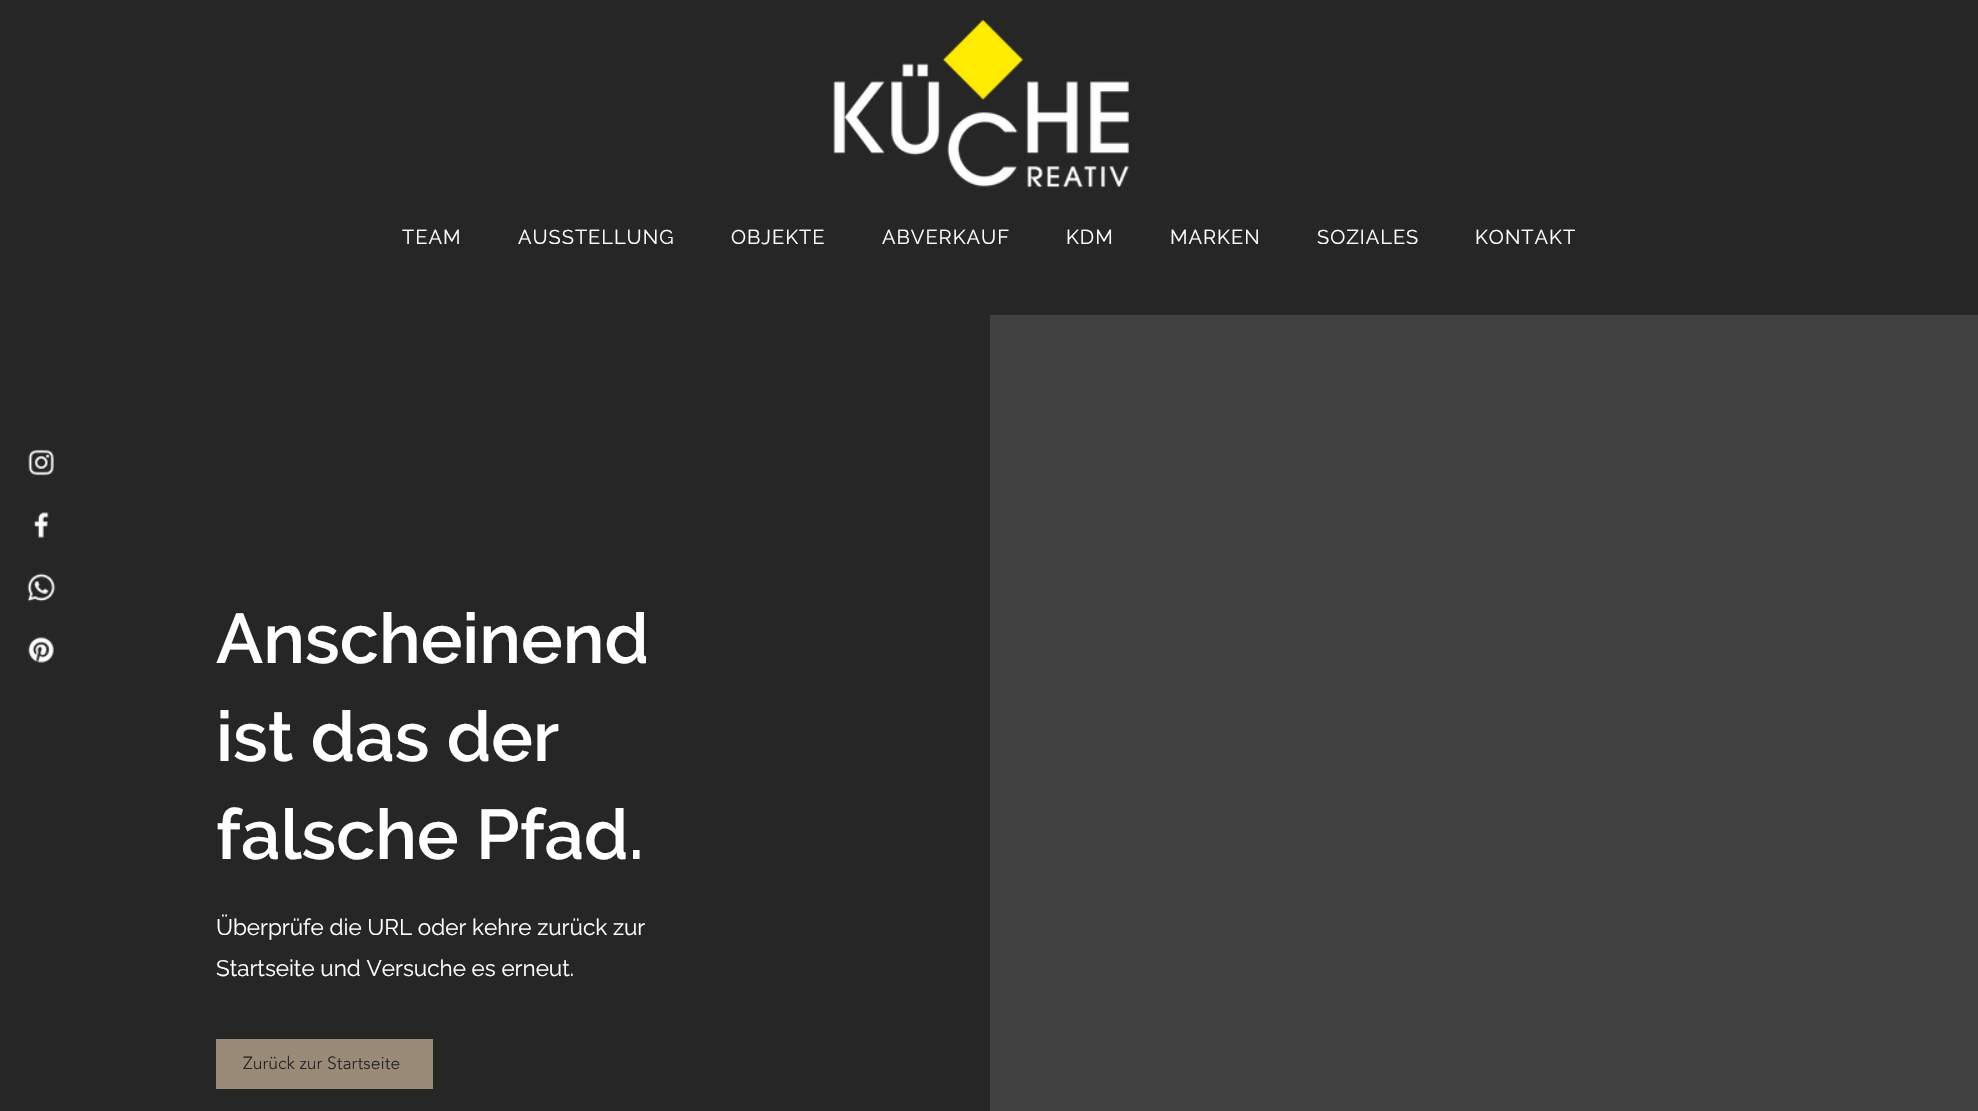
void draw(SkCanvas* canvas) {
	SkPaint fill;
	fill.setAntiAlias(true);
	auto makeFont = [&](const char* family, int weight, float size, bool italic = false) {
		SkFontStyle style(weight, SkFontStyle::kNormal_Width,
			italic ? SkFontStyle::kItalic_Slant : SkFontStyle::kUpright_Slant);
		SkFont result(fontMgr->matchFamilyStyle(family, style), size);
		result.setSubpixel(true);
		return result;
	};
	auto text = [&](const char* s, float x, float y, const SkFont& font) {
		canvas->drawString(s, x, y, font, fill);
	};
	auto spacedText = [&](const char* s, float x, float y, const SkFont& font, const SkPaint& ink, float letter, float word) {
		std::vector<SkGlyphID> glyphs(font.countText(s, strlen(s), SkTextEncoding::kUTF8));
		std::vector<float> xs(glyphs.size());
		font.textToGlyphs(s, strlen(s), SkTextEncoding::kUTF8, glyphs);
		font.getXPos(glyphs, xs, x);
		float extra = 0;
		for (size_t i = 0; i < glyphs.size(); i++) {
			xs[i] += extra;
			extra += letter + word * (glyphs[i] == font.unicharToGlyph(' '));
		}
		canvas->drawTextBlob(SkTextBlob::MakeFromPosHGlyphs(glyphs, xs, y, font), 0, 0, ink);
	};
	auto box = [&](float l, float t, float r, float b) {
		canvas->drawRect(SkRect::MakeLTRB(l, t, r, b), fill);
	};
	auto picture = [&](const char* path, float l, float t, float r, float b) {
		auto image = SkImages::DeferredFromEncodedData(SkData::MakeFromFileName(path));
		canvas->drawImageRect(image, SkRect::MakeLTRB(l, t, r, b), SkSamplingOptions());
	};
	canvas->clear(0xFF262626);
	picture("image0.png", 833, 19, 1129, 188);
	picture("image1.png", 28, 449, 54, 476);
	picture("image2.png", 33, 512, 49, 538);
	picture("image3.png", 27, 573, 56, 602);
	picture("image4.png", 28, 637, 54, 663);
	fill.setColor(0xFF9A8A78);
	box(216, 1039, 433, 1089);
	fill.setColor(0xFF414141);
	box(990, 315, 1978, 1111);
	auto font1 = makeFont("Raleway", 400, 20);
	fill.setColor(0xFFFFFFFF);
	spacedText("TEAM", 402, 244, font1, fill, 1, 0);
	spacedText("AUSSTELLUNG", 518, 244, font1, fill, 1, 0);
	spacedText("OBJEKTE", 731, 244, font1, fill, 1, 0);
	spacedText("ABVERKAUF", 882, 244, font1, fill, 1, 0);
	spacedText("KDM", 1066, 244, font1, fill, 1, 0);
	spacedText("MARKEN", 1170, 244, font1, fill, 1, 0);
	spacedText("SOZIALES", 1317, 244, font1, fill, 1, 0);
	spacedText("KONTAKT", 1475, 244, font1, fill, 1, 0);
	auto font2 = makeFont("Raleway", 600, 70);
	text("Anscheinend", 216, 663, font2);
	text("ist das der", 216, 761, font2);
	text("falsche Pfad.", 216, 859, font2);
	auto font3 = makeFont("Raleway", 400, 22.5f);
	text("Überprüfe die URL oder kehre zurück zur", 216, 935, font3);
	text("Startseite und Versuche es erneut.", 216, 976, font3);
	auto font4 = makeFont("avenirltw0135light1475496", 300, 17.5f);
	fill.setColor(0xFF262626);
	text("Zurück zur Startseite", 243, 1069, font4);
}
